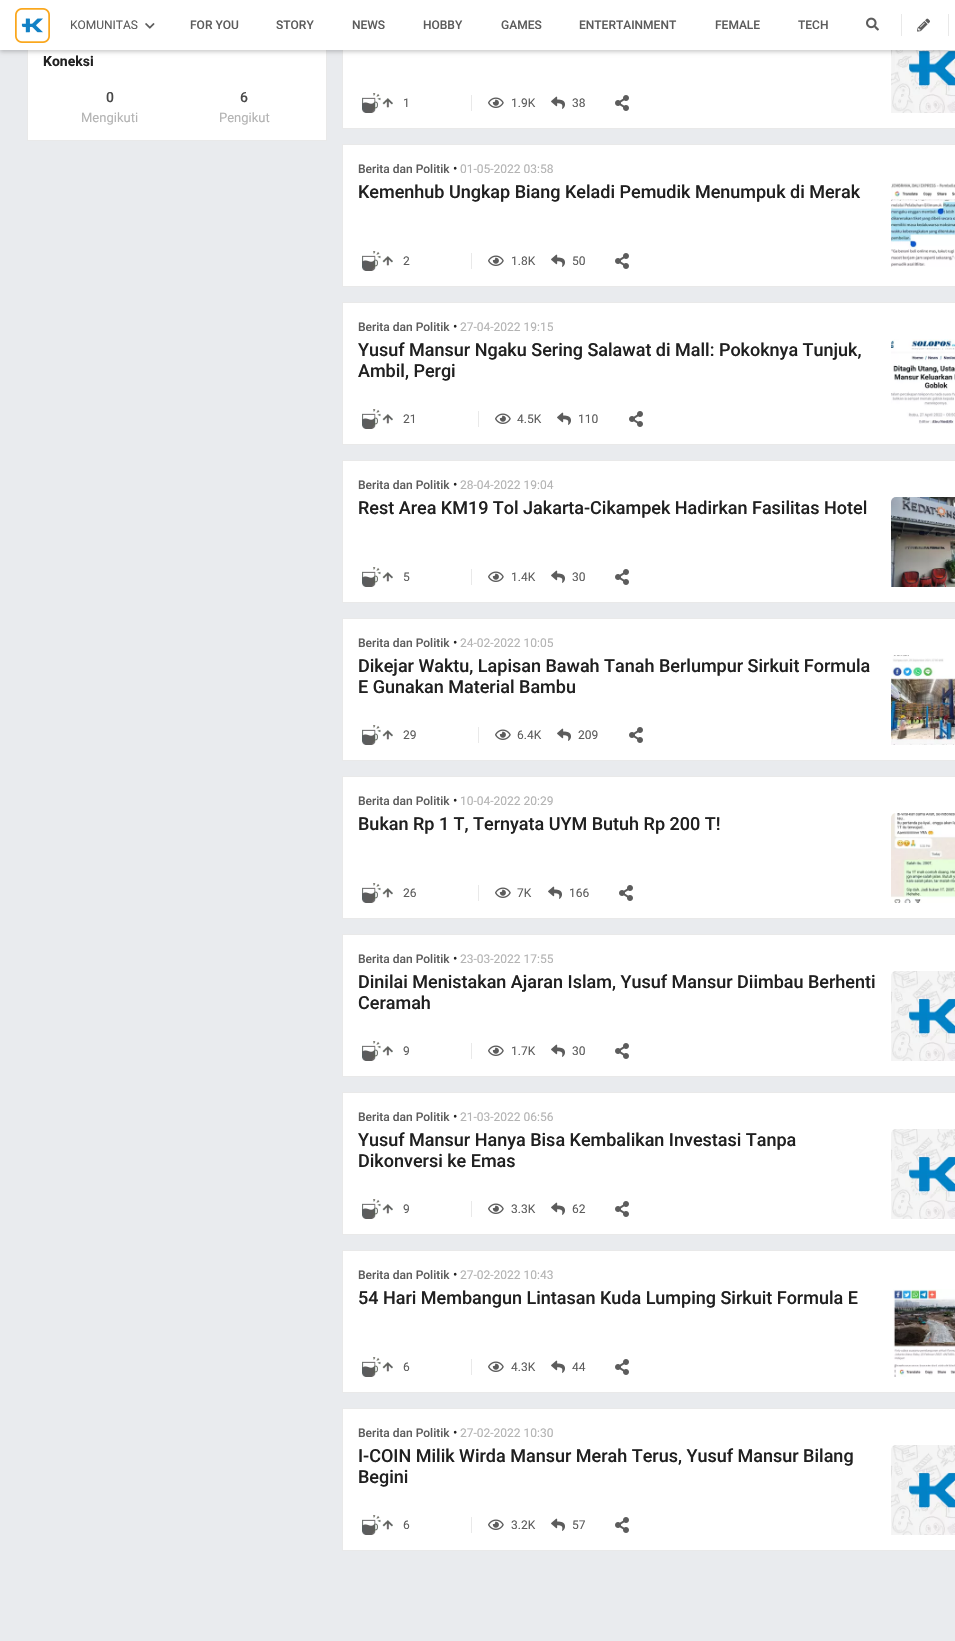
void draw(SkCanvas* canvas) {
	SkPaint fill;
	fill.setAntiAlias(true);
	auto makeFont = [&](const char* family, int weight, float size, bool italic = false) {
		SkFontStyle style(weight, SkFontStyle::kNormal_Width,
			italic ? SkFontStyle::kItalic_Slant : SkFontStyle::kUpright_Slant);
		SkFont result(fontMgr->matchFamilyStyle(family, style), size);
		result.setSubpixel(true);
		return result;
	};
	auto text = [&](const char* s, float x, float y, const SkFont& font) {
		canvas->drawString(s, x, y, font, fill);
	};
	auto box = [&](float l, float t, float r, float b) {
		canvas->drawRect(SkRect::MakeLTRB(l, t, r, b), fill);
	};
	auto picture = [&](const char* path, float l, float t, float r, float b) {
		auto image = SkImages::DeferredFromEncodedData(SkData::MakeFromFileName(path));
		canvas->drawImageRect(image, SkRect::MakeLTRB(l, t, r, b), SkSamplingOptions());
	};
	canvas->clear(0xFFE9EBEE);
	fill.setColor(0xFFFFFFFF);
	box(28, 50, 326, 140);
	fill.setStyle(SkPaint::kStroke_Style);
	fill.setStrokeWidth(1);
	fill.setColor(0xFFE9E9E9);
	canvas->drawRect(SkRect::MakeLTRB(27.5f, 37.5f, 326.5f, 140.5f), fill);
	fill.setStyle(SkPaint::kFill_Style);
	fill.setColor(0xFFFFFFFF);
	box(343, 50, 955, 128);
	fill.setStyle(SkPaint::kStroke_Style);
	fill.setColor(0xFFE9E9E9);
	canvas->drawRect(SkRect::MakeLTRB(342.5f, -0.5f, 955.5f, 128.5f), fill);
	picture("image8.png", 891, 50, 955, 113);
	fill.setStyle(SkPaint::kFill_Style);
	fill.setColor(0x33000000);
	fill.setMaskFilter(SkMaskFilter::MakeBlur(kNormal_SkBlurStyle, 2));
	canvas->drawRect(SkRect::MakeLTRB(0, 2, 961, 52), fill);
	fill.setMaskFilter(nullptr);
	fill.setColor(0xFFFFFFFF);
	box(0, 0, 955, 50);
	picture("image0.png", 15, 8, 50, 43);
	picture("image1.png", 145, 23, 155, 29);
	picture("image2.png", 866, 17, 879, 31);
	fill.setColor(0xFFE9E9E9);
	box(901, 14, 902, 36);
	picture("image3.png", 917, 18, 930, 32);
	box(948, 14, 949, 36);
	picture("image4.png", 362, 93, 393, 113);
	box(471, 95, 472, 111);
	picture("image5.png", 488, 97, 504, 108);
	picture("image6.png", 551, 96, 565, 109);
	picture("image7.png", 615, 95, 629, 111);
	fill.setColor(0xFFFFFFFF);
	canvas->drawRect(SkRect::MakeLTRB(342.5f, 144.5f, 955.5f, 286.5f), fill);
	fill.setStyle(SkPaint::kStroke_Style);
	fill.setColor(0xFFE9E9E9);
	canvas->drawRect(SkRect::MakeLTRB(342.5f, 144.5f, 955.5f, 286.5f), fill);
	picture("image4.png", 362, 251, 393, 271);
	fill.setStyle(SkPaint::kFill_Style);
	box(471, 253, 472, 269);
	picture("image5.png", 488, 255, 504, 266);
	picture("image6.png", 551, 254, 565, 267);
	picture("image7.png", 615, 253, 629, 269);
	picture("image9.png", 891, 183, 955, 267);
	fill.setColor(0xFFFFFFFF);
	canvas->drawRect(SkRect::MakeLTRB(342.5f, 302.5f, 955.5f, 444.5f), fill);
	fill.setStyle(SkPaint::kStroke_Style);
	fill.setColor(0xFFE9E9E9);
	canvas->drawRect(SkRect::MakeLTRB(342.5f, 302.5f, 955.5f, 444.5f), fill);
	picture("image4.png", 362, 409, 393, 429);
	fill.setStyle(SkPaint::kFill_Style);
	box(478, 411, 479, 427);
	picture("image5.png", 495, 413, 511, 424);
	picture("image6.png", 557, 412, 571, 425);
	picture("image7.png", 629, 411, 643, 427);
	picture("image10.png", 891, 339, 955, 424);
	fill.setColor(0xFFFFFFFF);
	canvas->drawRect(SkRect::MakeLTRB(342.5f, 460.5f, 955.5f, 602.5f), fill);
	fill.setStyle(SkPaint::kStroke_Style);
	fill.setColor(0xFFE9E9E9);
	canvas->drawRect(SkRect::MakeLTRB(342.5f, 460.5f, 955.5f, 602.5f), fill);
	picture("image4.png", 362, 567, 393, 587);
	fill.setStyle(SkPaint::kFill_Style);
	box(471, 569, 472, 585);
	picture("image5.png", 488, 571, 504, 582);
	picture("image6.png", 551, 570, 565, 583);
	picture("image7.png", 615, 569, 629, 585);
	picture("image11.png", 891, 497, 955, 587);
	fill.setColor(0xFFFFFFFF);
	canvas->drawRect(SkRect::MakeLTRB(342.5f, 618.5f, 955.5f, 760.5f), fill);
	fill.setStyle(SkPaint::kStroke_Style);
	fill.setColor(0xFFE9E9E9);
	canvas->drawRect(SkRect::MakeLTRB(342.5f, 618.5f, 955.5f, 760.5f), fill);
	picture("image4.png", 362, 725, 393, 745);
	fill.setStyle(SkPaint::kFill_Style);
	box(478, 727, 479, 743);
	picture("image5.png", 495, 729, 511, 740);
	picture("image6.png", 557, 728, 571, 741);
	picture("image7.png", 629, 727, 643, 743);
	picture("image12.png", 891, 655, 955, 745);
	fill.setColor(0xFFFFFFFF);
	canvas->drawRect(SkRect::MakeLTRB(342.5f, 776.5f, 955.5f, 918.5f), fill);
	fill.setStyle(SkPaint::kStroke_Style);
	fill.setColor(0xFFE9E9E9);
	canvas->drawRect(SkRect::MakeLTRB(342.5f, 776.5f, 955.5f, 918.5f), fill);
	picture("image4.png", 362, 883, 393, 903);
	fill.setStyle(SkPaint::kFill_Style);
	box(478, 885, 479, 901);
	picture("image5.png", 495, 887, 511, 898);
	picture("image6.png", 548, 886, 562, 899);
	picture("image7.png", 619, 885, 633, 901);
	picture("image13.png", 891, 813, 955, 903);
	fill.setColor(0xFFFFFFFF);
	canvas->drawRect(SkRect::MakeLTRB(342.5f, 934.5f, 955.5f, 1076.5f), fill);
	fill.setStyle(SkPaint::kStroke_Style);
	fill.setColor(0xFFE9E9E9);
	canvas->drawRect(SkRect::MakeLTRB(342.5f, 934.5f, 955.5f, 1076.5f), fill);
	picture("image4.png", 362, 1041, 393, 1061);
	fill.setStyle(SkPaint::kFill_Style);
	box(471, 1043, 472, 1059);
	picture("image5.png", 488, 1045, 504, 1056);
	picture("image6.png", 551, 1044, 565, 1057);
	picture("image7.png", 615, 1043, 629, 1059);
	picture("image14.png", 891, 971, 955, 1061);
	fill.setColor(0xFFFFFFFF);
	canvas->drawRect(SkRect::MakeLTRB(342.5f, 1092.5f, 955.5f, 1234.5f), fill);
	fill.setStyle(SkPaint::kStroke_Style);
	fill.setColor(0xFFE9E9E9);
	canvas->drawRect(SkRect::MakeLTRB(342.5f, 1092.5f, 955.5f, 1234.5f), fill);
	picture("image4.png", 362, 1199, 393, 1219);
	fill.setStyle(SkPaint::kFill_Style);
	box(471, 1201, 472, 1217);
	picture("image5.png", 488, 1203, 504, 1214);
	picture("image6.png", 551, 1202, 565, 1215);
	picture("image7.png", 615, 1201, 629, 1217);
	picture("image14.png", 891, 1129, 955, 1219);
	fill.setColor(0xFFFFFFFF);
	canvas->drawRect(SkRect::MakeLTRB(342.5f, 1250.5f, 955.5f, 1392.5f), fill);
	fill.setStyle(SkPaint::kStroke_Style);
	fill.setColor(0xFFE9E9E9);
	canvas->drawRect(SkRect::MakeLTRB(342.5f, 1250.5f, 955.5f, 1392.5f), fill);
	picture("image4.png", 362, 1357, 393, 1377);
	fill.setStyle(SkPaint::kFill_Style);
	box(471, 1359, 472, 1375);
	picture("image5.png", 488, 1361, 504, 1372);
	picture("image6.png", 551, 1360, 565, 1373);
	picture("image7.png", 615, 1359, 629, 1375);
	picture("image15.png", 893, 1289, 955, 1377);
	fill.setColor(0xFFFFFFFF);
	canvas->drawRect(SkRect::MakeLTRB(342.5f, 1408.5f, 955.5f, 1550.5f), fill);
	fill.setStyle(SkPaint::kStroke_Style);
	fill.setColor(0xFFE9E9E9);
	canvas->drawRect(SkRect::MakeLTRB(342.5f, 1408.5f, 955.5f, 1550.5f), fill);
	picture("image4.png", 362, 1515, 393, 1535);
	fill.setStyle(SkPaint::kFill_Style);
	box(471, 1517, 472, 1533);
	picture("image5.png", 488, 1519, 504, 1530);
	picture("image6.png", 551, 1518, 565, 1531);
	picture("image7.png", 615, 1517, 629, 1533);
	picture("image14.png", 891, 1445, 955, 1535);
	auto font1 = makeFont("Roboto", 400, 12);
	fill.setColor(0xFF5C5C5C);
	text("KOMUNITAS", 70, 29, font1);
	auto font2 = makeFont("Roboto", 500, 12);
	text("FOR YOU", 190, 29, font2);
	text("STORY", 276, 29, font2);
	text("NEWS", 352, 29, font2);
	text("HOBBY", 423, 29, font2);
	text("GAMES", 501, 29, font2);
	text("ENTERTAINMENT", 579, 29, font2);
	text("FEMALE", 715, 29, font2);
	text("TECH", 798, 29, font2);
	auto font3 = makeFont("Roboto", 700, 14);
	fill.setColor(0xFF202020);
	text("Koneksi", 43, 66, font3);
	auto font4 = makeFont("Roboto", 500, 14);
	fill.setColor(0xFF484848);
	text("0", 106, 102, font4);
	auto font5 = makeFont("Roboto", 400, 13);
	fill.setColor(0xFFB3B3B3);
	text("Mengikuti", 81, 122, font5);
	fill.setColor(0xFF484848);
	text("6", 240, 102, font4);
	fill.setColor(0xFFB3B3B3);
	text("Pengikut", 219, 122, font5);
	fill.setColor(0xFF5C5C5C);
	text("1", 403, 107, font1);
	text("1.9K", 511, 107, font1);
	text("38", 572, 107, font1);
	text("Berita dan Politik", 358, 173, font2);
	fill.setColor(0xFF202020);
	text("•", 453, 173, font5);
	fill.setColor(0xFFB3B3B3);
	text("01-05-2022 03:58", 460, 173, font1);
	auto font6 = makeFont("Roboto", 500, 18);
	fill.setColor(0xFF202020);
	text("Kemenhub Ungkap Biang Keladi Pemudik Menumpuk di Merak", 358, 198, font6);
	fill.setColor(0xFF5C5C5C);
	text("2", 403, 265, font1);
	text("1.8K", 511, 265, font1);
	text("50", 572, 265, font1);
	text("Berita dan Politik", 358, 331, font2);
	fill.setColor(0xFF202020);
	text("•", 453, 331, font5);
	fill.setColor(0xFFB3B3B3);
	text("27-04-2022 19:15", 460, 331, font1);
	fill.setColor(0xFF202020);
	text("Yusuf Mansur Ngaku Sering Salawat di Mall: Pokoknya Tunjuk,", 358, 356, font6);
	text("Ambil, Pergi", 358, 377, font6);
	fill.setColor(0xFF5C5C5C);
	text("21", 403, 423, font1);
	text("4.5K", 517, 423, font1);
	text("110", 578, 423, font1);
	text("Berita dan Politik", 358, 489, font2);
	fill.setColor(0xFF202020);
	text("•", 453, 489, font5);
	fill.setColor(0xFFB3B3B3);
	text("28-04-2022 19:04", 460, 489, font1);
	fill.setColor(0xFF202020);
	text("Rest Area KM19 Tol Jakarta-Cikampek Hadirkan Fasilitas Hotel", 358, 514, font6);
	fill.setColor(0xFF5C5C5C);
	text("5", 403, 581, font1);
	text("1.4K", 511, 581, font1);
	text("30", 572, 581, font1);
	text("Berita dan Politik", 358, 647, font2);
	fill.setColor(0xFF202020);
	text("•", 453, 647, font5);
	fill.setColor(0xFFB3B3B3);
	text("24-02-2022 10:05", 460, 647, font1);
	fill.setColor(0xFF202020);
	text("Dikejar Waktu, Lapisan Bawah Tanah Berlumpur Sirkuit Formula", 358, 672, font6);
	text("E Gunakan Material Bambu", 358, 693, font6);
	fill.setColor(0xFF5C5C5C);
	text("29", 403, 739, font1);
	text("6.4K", 517, 739, font1);
	text("209", 578, 739, font1);
	text("Berita dan Politik", 358, 805, font2);
	fill.setColor(0xFF202020);
	text("•", 453, 805, font5);
	fill.setColor(0xFFB3B3B3);
	text("10-04-2022 20:29", 460, 805, font1);
	fill.setColor(0xFF202020);
	text("Bukan Rp 1 T, Ternyata UYM Butuh Rp 200 T!", 358, 830, font6);
	fill.setColor(0xFF5C5C5C);
	text("26", 403, 897, font1);
	text("7K", 517, 897, font1);
	text("166", 569, 897, font1);
	text("Berita dan Politik", 358, 963, font2);
	fill.setColor(0xFF202020);
	text("•", 453, 963, font5);
	fill.setColor(0xFFB3B3B3);
	text("23-03-2022 17:55", 460, 963, font1);
	fill.setColor(0xFF202020);
	text("Dinilai Menistakan Ajaran Islam, Yusuf Mansur Diimbau Berhenti", 358, 988, font6);
	text("Ceramah", 358, 1009, font6);
	fill.setColor(0xFF5C5C5C);
	text("9", 403, 1055, font1);
	text("1.7K", 511, 1055, font1);
	text("30", 572, 1055, font1);
	text("Berita dan Politik", 358, 1121, font2);
	fill.setColor(0xFF202020);
	text("•", 453, 1121, font5);
	fill.setColor(0xFFB3B3B3);
	text("21-03-2022 06:56", 460, 1121, font1);
	fill.setColor(0xFF202020);
	text("Yusuf Mansur Hanya Bisa Kembalikan Investasi Tanpa", 358, 1146, font6);
	text("Dikonversi ke Emas", 358, 1167, font6);
	fill.setColor(0xFF5C5C5C);
	text("9", 403, 1213, font1);
	text("3.3K", 511, 1213, font1);
	text("62", 572, 1213, font1);
	text("Berita dan Politik", 358, 1279, font2);
	fill.setColor(0xFF202020);
	text("•", 453, 1279, font5);
	fill.setColor(0xFFB3B3B3);
	text("27-02-2022 10:43", 460, 1279, font1);
	fill.setColor(0xFF202020);
	text("54 Hari Membangun Lintasan Kuda Lumping Sirkuit Formula E", 358, 1304, font6);
	fill.setColor(0xFF5C5C5C);
	text("6", 403, 1371, font1);
	text("4.3K", 511, 1371, font1);
	text("44", 572, 1371, font1);
	text("Berita dan Politik", 358, 1437, font2);
	fill.setColor(0xFF202020);
	text("•", 453, 1437, font5);
	fill.setColor(0xFFB3B3B3);
	text("27-02-2022 10:30", 460, 1437, font1);
	fill.setColor(0xFF202020);
	text("I-COIN Milik Wirda Mansur Merah Terus, Yusuf Mansur Bilang", 358, 1462, font6);
	text("Begini", 358, 1483, font6);
	fill.setColor(0xFF5C5C5C);
	text("6", 403, 1529, font1);
	text("3.2K", 511, 1529, font1);
	text("57", 572, 1529, font1);
}
